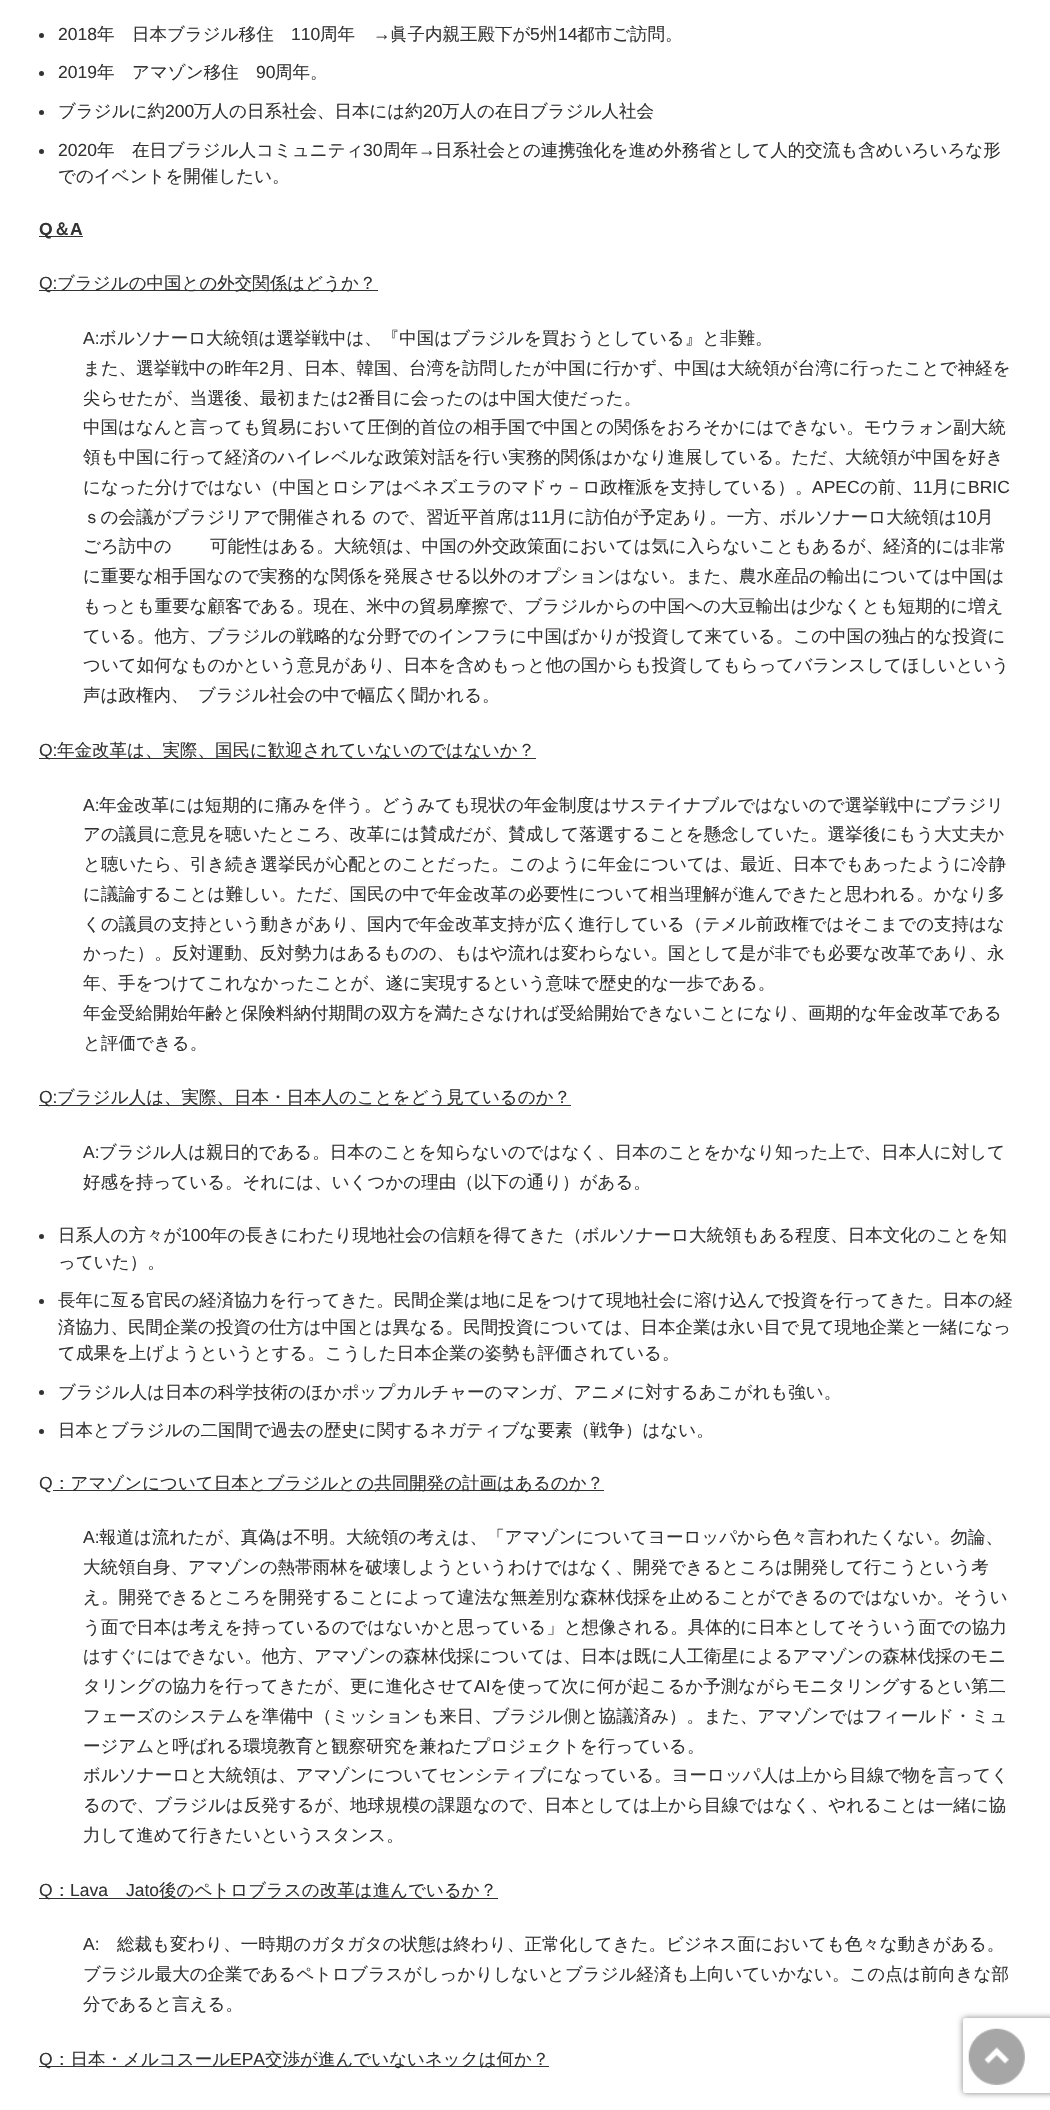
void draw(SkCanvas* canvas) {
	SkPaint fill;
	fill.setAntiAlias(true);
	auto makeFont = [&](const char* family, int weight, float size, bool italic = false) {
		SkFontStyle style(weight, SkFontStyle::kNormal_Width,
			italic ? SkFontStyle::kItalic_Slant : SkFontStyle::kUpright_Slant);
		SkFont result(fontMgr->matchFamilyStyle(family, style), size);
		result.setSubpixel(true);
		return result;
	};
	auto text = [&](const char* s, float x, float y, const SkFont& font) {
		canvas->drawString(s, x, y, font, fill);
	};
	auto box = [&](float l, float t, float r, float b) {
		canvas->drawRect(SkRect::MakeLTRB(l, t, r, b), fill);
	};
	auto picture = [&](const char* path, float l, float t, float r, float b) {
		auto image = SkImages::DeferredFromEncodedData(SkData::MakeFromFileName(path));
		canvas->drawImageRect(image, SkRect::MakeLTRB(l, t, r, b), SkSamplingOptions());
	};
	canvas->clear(0xFFFFFFFF);
	fill.setColor(0xFF333333);
	canvas->drawCircle(41.5f, 35.5f, 2.5f, fill);
	canvas->drawCircle(41.5f, 73.5f, 2.5f, fill);
	canvas->drawCircle(41.5f, 112.5f, 2.5f, fill);
	canvas->drawCircle(41.5f, 151.5f, 2.5f, fill);
	box(39, 236, 83, 237);
	box(39, 290, 378, 291);
	box(39, 758, 536, 759);
	box(39, 1105, 571, 1106);
	canvas->drawCircle(41.5f, 1236.5f, 2.5f, fill);
	canvas->drawCircle(41.5f, 1301.5f, 2.5f, fill);
	canvas->drawCircle(41.5f, 1392.5f, 2.5f, fill);
	canvas->drawCircle(41.5f, 1431.5f, 2.5f, fill);
	box(53, 1490, 604, 1491);
	box(39, 1898, 498, 1899);
	box(39, 2066, 549, 2067);
	canvas->save();
	canvas->clipPath(SkPathBuilder(SkPathFillType::kEvenOdd).moveTo(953, 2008).lineTo(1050, 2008).lineTo(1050, 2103).lineTo(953, 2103).close().moveTo(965.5f, 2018).lineTo(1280.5f, 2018).cubicTo(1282, 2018, 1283, 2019, 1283, 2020.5f).lineTo(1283, 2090.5f).cubicTo(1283, 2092, 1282, 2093, 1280.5f, 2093).lineTo(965.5f, 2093).cubicTo(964, 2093, 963, 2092, 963, 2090.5f).lineTo(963, 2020.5f).cubicTo(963, 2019, 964, 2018, 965.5f, 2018).close().detach(), true);
	fill.setColor(0xFF808080);
	fill.setMaskFilter(SkMaskFilter::MakeBlur(kNormal_SkBlurStyle, 3));
	canvas->drawRoundRect(SkRect::MakeLTRB(963, 2018, 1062, 2093), 2.5f, 2.5f, fill);
	fill.setMaskFilter(nullptr);
	canvas->restore();
	picture("image0.png", 968, 2028, 1025, 2085);
	auto font1 = makeFont("Liberation Sans", 400, 17.5f);
	fill.setColor(0xFF333333);
	text("2018", 58, 40, font1);
	auto font2 = makeFont("WenQuanYi Zen Hei", 500, 17.5f);
	text("年　日本ブラジル移住", 97, 40, font2);
	text("110", 291, 40, font1);
	text("周年", 320, 40, font2);
	text("→", 373, 40, font1);
	text("眞子内親王殿下が", 390, 40, font2);
	text("5", 530, 40, font1);
	text("州", 540, 40, font2);
	text("14", 558, 40, font1);
	text("都市ご訪問。", 577, 40, font2);
	text("2019", 58, 78, font1);
	text("年　アマゾン移住", 97, 78, font2);
	text("90", 256, 78, font1);
	text("周年。", 275, 78, font2);
	text("ブラジルに約", 58, 117, font2);
	text("200", 165, 117, font1);
	text("万人の日系社会、日本には約", 194, 117, font2);
	text("20", 423, 117, font1);
	text("万人の在日ブラジル人社会", 442, 117, font2);
	text("2020", 58, 156, font1);
	text("年　在日ブラジル人コミュニティ", 97, 156, font2);
	text("30", 363, 156, font1);
	text("周年", 383, 156, font2);
	text("→", 418, 156, font1);
	text("日系社会との連携強化を進め外務省として人的交流も含めいろいろな形", 435, 156, font2);
	text("でのイベントを開催したい。", 58, 182, font2);
	auto font3 = makeFont("Liberation Sans", 700, 17.5f);
	text("Q", 39, 235, font3);
	auto font4 = makeFont("WenQuanYi Zen Hei", 700, 17.5f);
	text("＆", 53, 235, font4);
	text("A", 70, 235, font3);
	text("Q:", 39, 289, font1);
	text("ブラジルの中国との外交関係はどうか？", 57, 289, font2);
	text("A:", 83, 344, font1);
	text("ボルソナーロ大統領は選挙戦中は、『中国はブラジルを買おうとしている』と非難。", 99, 344, font2);
	text("また、選挙戦中の昨年", 83, 374, font2);
	text("2", 259, 374, font1);
	text("月、日本、韓国、台湾を訪問したが中国に行かず、中国は大統領が台湾に行ったことで神経を", 269, 374, font2);
	text("尖らせたが、当選後、最初または", 83, 404, font2);
	text("2", 348, 404, font1);
	text("番目に会ったのは中国大使だった。", 358, 404, font2);
	text("中国はなんと言っても貿易において圧倒的首位の相手国で中国との関係をおろそかにはできない。モウラォン副大統", 83, 433, font2);
	text("領も中国に行って経済のハイレベルな政策対話を行い実務的関係はかなり進展している。ただ、大統領が中国を好き", 83, 463, font2);
	text("になった分けではない（中国とロシアはベネズエラのマドゥ－ロ政権派を支持している）。", 83, 493, font2);
	text("APEC", 812, 493, font1);
	text("の前、", 860, 493, font2);
	text("11", 913, 493, font1);
	text("月に", 932, 493, font2);
	text("BRIC", 968, 493, font1);
	text("ｓの会議がブラジリアで開催される ので、習近平首席は", 83, 523, font2);
	text("11", 531, 523, font1);
	text("月に訪伯が予定あり。一方、ボルソナーロ大統領は", 550, 523, font2);
	text("10", 957, 523, font1);
	text("月", 976, 523, font2);
	text("ごろ訪中の", 83, 552, font2);
	text("可能性はある。大統領は、中国の外交政策面においては気に入らないこともあるが、経済的には非常", 210, 552, font2);
	text("に重要な相手国なので実務的な関係を発展させる以外のオプションはない。また、農水産品の輸出については中国は", 83, 582, font2);
	text("もっとも重要な顧客である。現在、米中の貿易摩擦で、ブラジルからの中国への大豆輸出は少なくとも短期的に増え", 83, 612, font2);
	text("ている。他方、ブラジルの戦略的な分野でのインフラに中国ばかりが投資して来ている。この中国の独占的な投資に", 83, 642, font2);
	text("ついて如何なものかという意見があり、日本を含めもっと他の国からも投資してもらってバランスしてほしいという", 83, 671, font2);
	text("声は政権内、", 83, 701, font2);
	text("ブラジル社会の中で幅広く聞かれる。", 198, 701, font2);
	text("Q:", 39, 756, font1);
	text("年金改革は、実際、国民に歓迎されていないのではないか？", 57, 756, font2);
	text("A:", 83, 811, font1);
	text("年金改革には短期的に痛みを伴う。どうみても現状の年金制度はサステイナブルではないので選挙戦中にブラジリ", 99, 811, font2);
	text("アの議員に意見を聴いたところ、改革には賛成だが、賛成して落選することを懸念していた。選挙後にもう大丈夫か", 83, 840, font2);
	text("と聴いたら、引き続き選挙民が心配とのことだった。このように年金については、最近、日本でもあったように冷静", 83, 870, font2);
	text("に議論することは難しい。ただ、国民の中で年金改革の必要性について相当理解が進んできたと思われる。かなり多", 83, 900, font2);
	text("くの議員の支持という動きがあり、国内で年金改革支持が広く進行している（テメル前政権ではそこまでの支持はな", 83, 930, font2);
	text("かった）。反対運動、反対勢力はあるものの、もはや流れは変わらない。国として是が非でも必要な改革であり、永", 83, 959, font2);
	text("年、手をつけてこれなかったことが、遂に実現するという意味で歴史的な一歩である。", 83, 989, font2);
	text("年金受給開始年齢と保険料納付期間の双方を満たさなければ受給開始できないことになり、画期的な年金改革である", 83, 1019, font2);
	text("と評価できる。", 83, 1049, font2);
	text("Q:", 39, 1103, font1);
	text("ブラジル人は、実際、日本・日本人のことをどう見ているのか？", 57, 1103, font2);
	text("A:", 83, 1158, font1);
	text("ブラジル人は親日的である。日本のことを知らないのではなく、日本のことをかなり知った上で、日本人に対して", 99, 1158, font2);
	text("好感を持っている。それには、いくつかの理由（以下の通り）がある。", 83, 1188, font2);
	text("日系人の方々が", 58, 1241, font2);
	text("100", 181, 1241, font1);
	text("年の長きにわたり現地社会の信頼を得てきた（ボルソナーロ大統領もある程度、日本文化のことを知", 210, 1241, font2);
	text("っていた）。", 58, 1268, font2);
	text("長年に亙る官民の経済協力を行ってきた。民間企業は地に足をつけて現地社会に溶け込んで投資を行ってきた。日本の経", 58, 1306, font2);
	text("済協力、民間企業の投資の仕方は中国とは異なる。民間投資については、日本企業は永い目で見て現地企業と一緒になっ", 58, 1333, font2);
	text("て成果を上げようというとする。こうした日本企業の姿勢も評価されている。", 58, 1359, font2);
	text("ブラジル人は日本の科学技術のほかポップカルチャーのマンガ、アニメに対するあこがれも強い。", 58, 1398, font2);
	text("日本とブラジルの二国間で過去の歴史に関するネガティブな要素（戦争）はない。", 58, 1436, font2);
	text("Q", 39, 1489, font1);
	text("：アマゾンについて日本とブラジルとの共同開発の計画はあるのか？", 53, 1489, font2);
	text("A:", 83, 1543, font1);
	text("報道は流れたが、真偽は不明。大統領の考えは、「アマゾンについてヨーロッパから色々言われたくない。勿論、", 99, 1543, font2);
	text("大統領自身、アマゾンの熱帯雨林を破壊しようというわけではなく、開発できるところは開発して行こうという考", 83, 1573, font2);
	text("え。開発できるところを開発することによって違法な無差別な森林伐採を止めることができるのではないか。そうい", 83, 1603, font2);
	text("う面で日本は考えを持っているのではないかと思っている」と想像される。具体的に日本としてそういう面での協力", 83, 1633, font2);
	text("はすぐにはできない。他方、アマゾンの森林伐採については、日本は既に人工衛星によるアマゾンの森林伐採のモニ", 83, 1662, font2);
	text("タリングの協力を行ってきたが、更に進化させて", 83, 1692, font2);
	text("AI", 474, 1692, font1);
	text("を使って次に何が起こるか予測ながらモニタリングするとい第二", 490, 1692, font2);
	text("フェーズのシステムを準備中（ミッションも来日、ブラジル側と協議済み）。また、アマゾンではフィールド・ミュ", 83, 1722, font2);
	text("ージアムと呼ばれる環境教育と観察研究を兼ねたプロジェクトを行っている。", 83, 1752, font2);
	text("ボルソナーロと大統領は、アマゾンについてセンシティブになっている。ヨーロッパ人は上から目線で物を言ってく", 83, 1781, font2);
	text("るので、ブラジルは反発するが、地球規模の課題なので、日本としては上から目線ではなく、やれることは一緒に協", 83, 1811, font2);
	text("力して進めて行きたいというスタンス。", 83, 1841, font2);
	text("Q", 39, 1896, font1);
	text("：", 53, 1896, font2);
	text("Lava", 70, 1896, font1);
	text("Jato", 126, 1896, font1);
	text("後のペトロブラスの改革は進んでいるか？", 159, 1896, font2);
	text("A:", 83, 1950, font1);
	text("総裁も変わり、一時期のガタガタの状態は終わり、正常化してきた。ビジネス面においても色々な動きがある。", 117, 1950, font2);
	text("ブラジル最大の企業であるペトロブラスがしっかりしないとブラジル経済も上向いていかない。この点は前向きな部", 83, 1980, font2);
	text("分であると言える。", 83, 2010, font2);
	text("Q", 39, 2065, font1);
	text("：日本・メルコスール", 53, 2065, font2);
	text("EPA", 230, 2065, font1);
	text("交渉が進んでいないネックは何か？", 265, 2065, font2);
}
